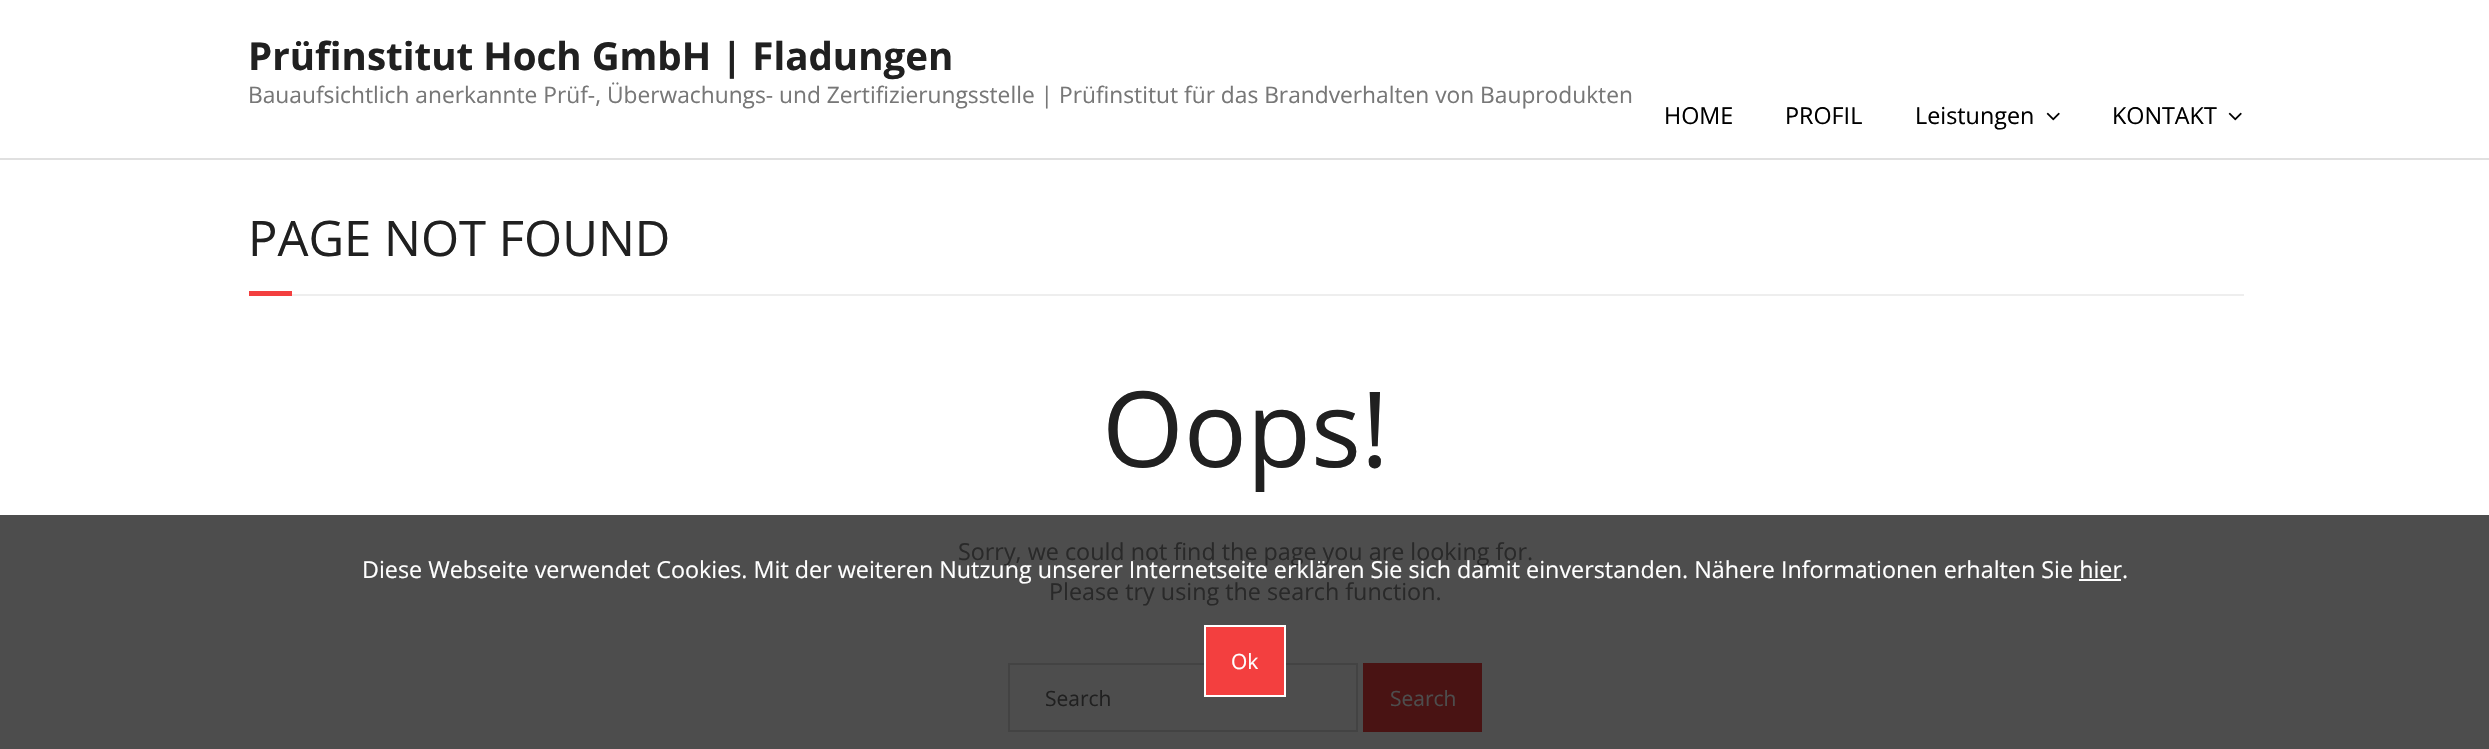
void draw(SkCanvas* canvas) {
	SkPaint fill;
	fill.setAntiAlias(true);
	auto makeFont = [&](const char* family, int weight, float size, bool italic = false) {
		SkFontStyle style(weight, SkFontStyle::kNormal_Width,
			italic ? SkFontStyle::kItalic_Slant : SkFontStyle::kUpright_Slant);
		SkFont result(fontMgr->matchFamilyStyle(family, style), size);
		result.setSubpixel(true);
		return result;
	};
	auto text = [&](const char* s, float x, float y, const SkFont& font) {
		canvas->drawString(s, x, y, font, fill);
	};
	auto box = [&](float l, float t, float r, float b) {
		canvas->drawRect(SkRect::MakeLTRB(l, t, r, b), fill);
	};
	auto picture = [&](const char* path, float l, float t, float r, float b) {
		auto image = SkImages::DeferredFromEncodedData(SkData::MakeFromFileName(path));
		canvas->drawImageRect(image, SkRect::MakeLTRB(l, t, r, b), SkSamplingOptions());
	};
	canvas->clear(0xFFFFFFFF);
	fill.setColor(0xFF4D4D4D);
	box(0, 515, 2489, 749);
	fill.setColor(0xFFE0E0E0);
	box(0, 158, 2489, 160);
	picture("image0.png", 2046, 112, 2060, 121);
	picture("image0.png", 2228, 112, 2242, 121);
	fill.setColor(0xFFF33F3F);
	box(249, 291, 292, 296);
	fill.setColor(0xFFEEEEEE);
	box(292, 294, 2244, 296);
	fill.setStyle(SkPaint::kStroke_Style);
	fill.setStrokeWidth(2);
	fill.setColor(0xFF434343);
	canvas->drawRect(SkRect::MakeLTRB(1009, 664, 1357, 731), fill);
	fill.setStyle(SkPaint::kFill_Style);
	fill.setColor(0xFF491313);
	box(1363, 663, 1482, 732);
	fill.setColor(0xFFFFFFFF);
	box(2079, 579, 2121, 581);
	fill.setColor(0xFFF33F3F);
	canvas->drawRect(SkRect::MakeLTRB(1205, 626, 1285, 696), fill);
	fill.setStyle(SkPaint::kStroke_Style);
	fill.setColor(0xFFFFFFFF);
	canvas->drawRect(SkRect::MakeLTRB(1205, 626, 1285, 696), fill);
	auto font1 = makeFont("Open Sans", 700, 38.5f);
	fill.setStyle(SkPaint::kFill_Style);
	fill.setColor(0xFF202020);
	text("Prüfinstitut Hoch GmbH | Fladungen", 248, 70, font1);
	auto font2 = makeFont("Open Sans", 400, 22.75f);
	fill.setColor(0xFF777777);
	text("Bauaufsichtlich anerkannte Prüf-, Überwachungs- und Zertifizierungsstelle | Prüfinstitut für das Brandverhalten von Bauprodukten", 248, 103, font2);
	auto font3 = makeFont("Open Sans", 400, 23.33f);
	fill.setColor(0xFF000000);
	text("HOME", 1664, 124, font3);
	text("PROFIL", 1785, 124, font3);
	text("Leistungen", 1915, 124, font3);
	text("KONTAKT", 2112, 124, font3);
	auto font4 = makeFont("Open Sans", 400, 49);
	fill.setColor(0xFF202020);
	text("PAGE NOT FOUND", 248, 256, font4);
	auto font5 = makeFont("Open Sans", 400, 105);
	text("Oops!", 1102, 467, font5);
	fill.setColor(0xFF292929);
	text("Sorry, we could not find the page you are looking for.", 958, 560, font3);
	text("Please try using the search function.", 1049, 600, font3);
	auto font6 = makeFont("Open Sans", 400, 21);
	fill.setColor(0xFF202020);
	text("Search", 1045, 706, font6);
	fill.setColor(0xFF4D4D4D);
	text("Search", 1390, 706, font6);
	fill.setColor(0xFFFFFFFF);
	text("Diese Webseite verwendet Cookies. Mit der weiteren Nutzung unserer Internetseite erklären Sie sich damit einverstanden. Nähere Informationen erhalten Sie hier.", 362, 578, font3);
	text("Ok", 1231, 669, font6);
}
